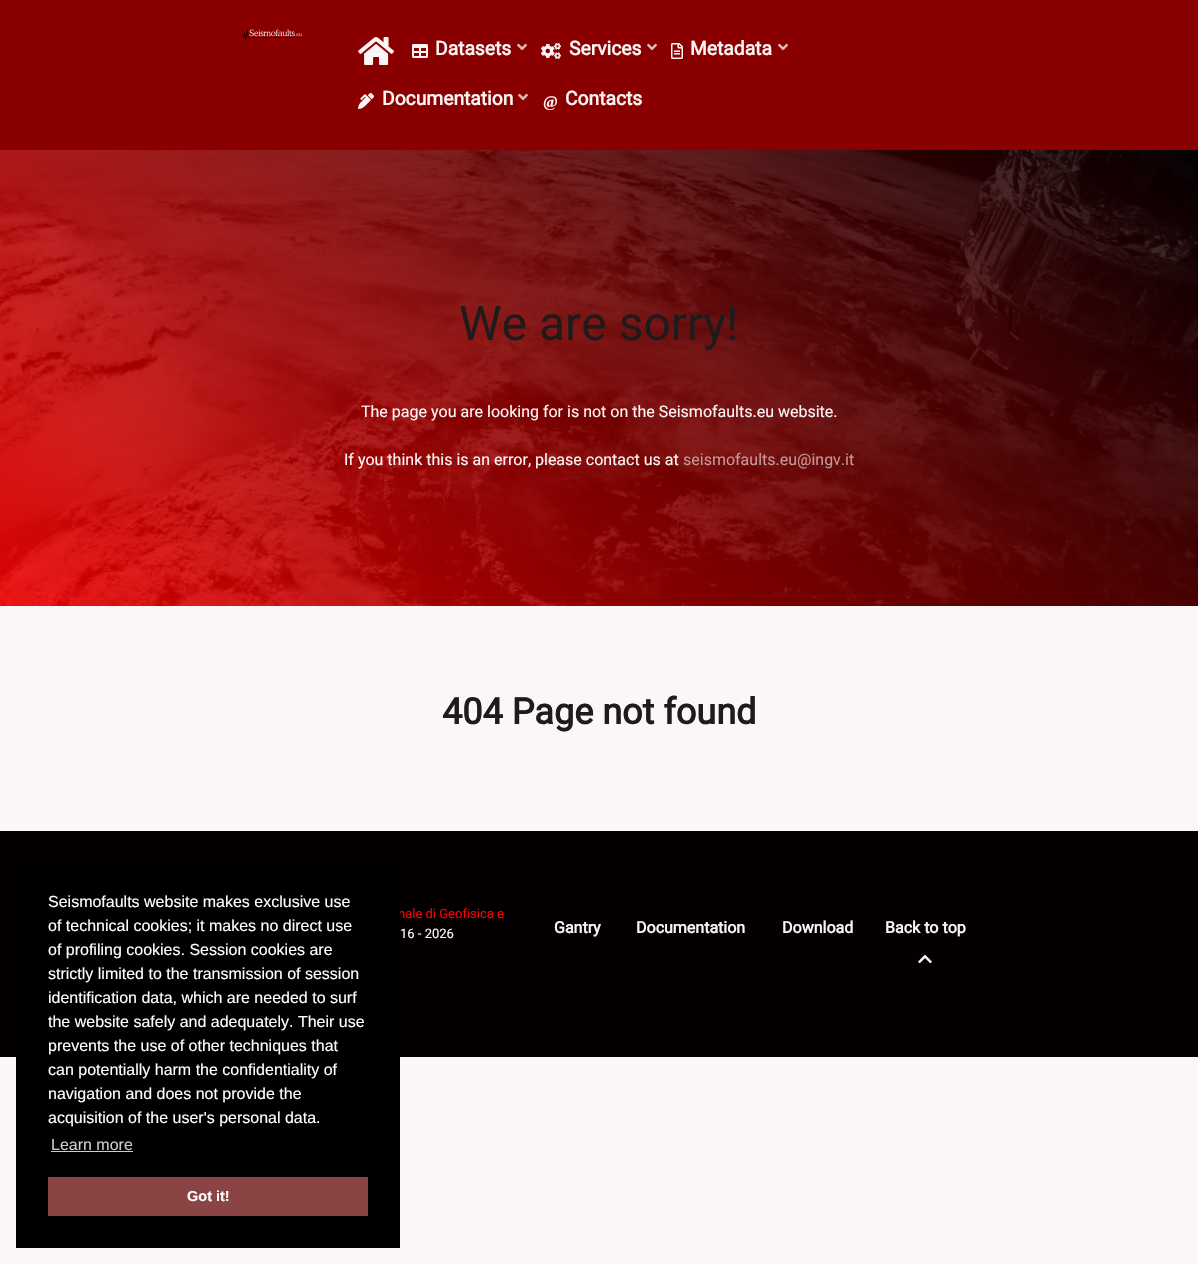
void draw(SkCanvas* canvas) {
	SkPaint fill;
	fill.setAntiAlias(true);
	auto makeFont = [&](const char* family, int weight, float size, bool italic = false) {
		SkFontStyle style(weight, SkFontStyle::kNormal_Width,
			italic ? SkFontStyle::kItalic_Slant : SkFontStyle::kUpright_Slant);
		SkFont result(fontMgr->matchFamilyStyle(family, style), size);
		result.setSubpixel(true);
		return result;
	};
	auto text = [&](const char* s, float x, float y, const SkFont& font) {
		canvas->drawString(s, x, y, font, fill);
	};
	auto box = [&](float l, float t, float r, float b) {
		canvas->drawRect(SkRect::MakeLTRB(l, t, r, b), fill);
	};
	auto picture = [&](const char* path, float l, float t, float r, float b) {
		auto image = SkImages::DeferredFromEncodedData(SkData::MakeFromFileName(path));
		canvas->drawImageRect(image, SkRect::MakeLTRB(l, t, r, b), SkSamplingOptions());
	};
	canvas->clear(0xFFFBF7F7);
	fill.setColor(0xFF8A0000);
	box(0, 0, 1198, 150);
	picture("image0.png", 241, 28, 303, 41);
	picture("image1.png", 358, 37, 394, 65);
	picture("image2.png", 412, 44, 428, 58);
	picture("image3.png", 517, 43, 527, 51);
	picture("image4.png", 541, 43, 561, 59);
	picture("image3.png", 647, 43, 657, 51);
	picture("image5.png", 671, 43, 683, 59);
	picture("image3.png", 778, 43, 788, 51);
	picture("image6.png", 358, 93, 374, 109);
	picture("image3.png", 518, 93, 528, 101);
	picture("image7.png", 0, 150, 1198, 606);
	fill.setColor(0xFF040001);
	box(0, 831, 1198, 1057);
	picture("image8.png", 918, 954, 932, 964);
	auto font1 = makeFont("Roboto", 700, 19.25f);
	fill.setColor(0xFFFBF6F6);
	text("Datasets", 435, 55, font1);
	text("Services", 569, 55, font1);
	text("Metadata", 690, 55, font1);
	text("Documentation", 382, 105, font1);
	auto font2 = makeFont("Liberation Serif", 700, 16);
	text("@", 543, 107, font2);
	text("Contacts", 565, 105, font1);
	auto font3 = makeFont("Roboto", 400, 48);
	fill.setColor(0xFF1F1B1B);
	text("We are sorry!", 459, 340, font3);
	auto font4 = makeFont("Roboto", 400, 16);
	fill.setColor(0xFFFBF6F6);
	text("The page you are looking for is not on the Seismofaults.eu website.", 361, 417, font4);
	text("If you think this is an error, please contact us at", 344, 465, font4);
	fill.setColor(0xFFC49999);
	text("seismofaults.eu@ingv.it", 683, 465, font4);
	auto font5 = makeFont("Roboto", 700, 36);
	fill.setColor(0xFF1F1B1B);
	text("404 Page not found", 442, 724, font5);
	auto font6 = makeFont("Roboto", 400, 13);
	fill.setColor(0xFFFB0000);
	text("nale di Geofisica e", 398, 918, font6);
	fill.setColor(0xFFFBF6F6);
	text("16 - 2026", 400, 938, font6);
	auto font7 = makeFont("Roboto", 700, 16);
	text("Gantry", 554, 933, font7);
	text("Documentation", 636, 933, font7);
	text("Download", 782, 933, font7);
	text("Back to top", 885, 933, font7);
	fill.setColor(0xFF000000);
	box(16, 858, 400, 1248);
	auto font8 = makeFont("Liberation Sans", 400, 16);
	fill.setColor(0xFFFFFFFF);
	text("Seismofaults website makes exclusive use", 48, 907, font8);
	text("of technical cookies; it makes no direct use", 48, 931, font8);
	text("of profiling cookies. Session cookies are", 48, 955, font8);
	text("strictly limited to the transmission of session", 48, 979, font8);
	text("identification data, which are needed to surf", 48, 1003, font8);
	text("the website safely and adequately. Their use", 48, 1027, font8);
	text("prevents the use of other techniques that", 48, 1051, font8);
	text("can potentially harm the confidentiality of", 48, 1075, font8);
	text("navigation and does not provide the", 48, 1099, font8);
	text("acquisition of the user's personal data.", 48, 1123, font8);
	fill.setColor(0xFFCCCCCC);
	text("Learn more", 51, 1150, font8);
	box(51, 1151, 133, 1152);
	fill.setColor(0xFF8A4444);
	box(48, 1177, 368, 1216);
	auto font9 = makeFont("Liberation Sans", 700, 14.5f);
	fill.setColor(0xFFFFFFFF);
	text("Got it!", 187, 1201, font9);
}
